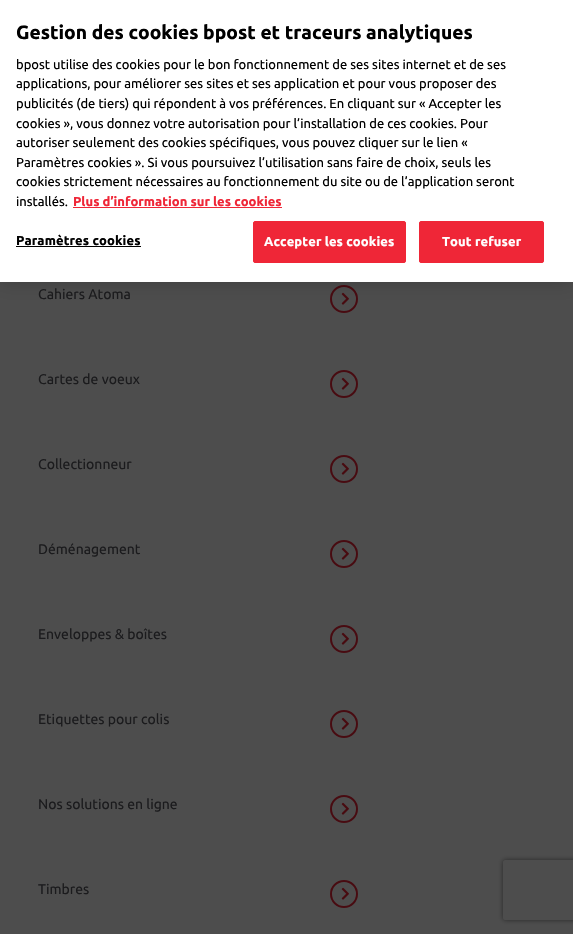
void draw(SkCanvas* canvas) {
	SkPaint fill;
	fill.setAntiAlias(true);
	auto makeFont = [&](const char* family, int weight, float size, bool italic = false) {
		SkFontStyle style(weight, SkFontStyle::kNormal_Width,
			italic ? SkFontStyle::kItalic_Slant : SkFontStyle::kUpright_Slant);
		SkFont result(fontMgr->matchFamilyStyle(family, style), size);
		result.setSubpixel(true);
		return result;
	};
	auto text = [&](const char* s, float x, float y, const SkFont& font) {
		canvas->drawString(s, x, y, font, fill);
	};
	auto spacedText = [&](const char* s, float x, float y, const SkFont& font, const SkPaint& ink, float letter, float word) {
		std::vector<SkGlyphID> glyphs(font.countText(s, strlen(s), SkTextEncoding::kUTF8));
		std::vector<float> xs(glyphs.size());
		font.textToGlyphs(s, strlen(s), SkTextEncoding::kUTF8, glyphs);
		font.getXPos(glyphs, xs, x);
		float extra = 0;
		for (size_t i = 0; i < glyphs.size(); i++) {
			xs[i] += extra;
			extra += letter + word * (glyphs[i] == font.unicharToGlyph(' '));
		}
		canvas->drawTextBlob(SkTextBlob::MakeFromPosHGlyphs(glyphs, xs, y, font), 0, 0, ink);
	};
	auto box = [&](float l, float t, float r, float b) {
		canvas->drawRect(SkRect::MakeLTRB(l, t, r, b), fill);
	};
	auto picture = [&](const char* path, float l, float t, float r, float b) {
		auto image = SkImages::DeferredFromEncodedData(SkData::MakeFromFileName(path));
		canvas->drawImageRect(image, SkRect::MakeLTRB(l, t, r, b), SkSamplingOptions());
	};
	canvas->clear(0xFF4D4D4D);
	fill.setStyle(SkPaint::kStroke_Style);
	fill.setStrokeWidth(2);
	fill.setColor(0xFF480B11);
	canvas->drawCircle(344, 299, 13, fill);
	picture("image0.png", 341, 292, 349, 305);
	fill.setStyle(SkPaint::kFill_Style);
	fill.setColor(0x33000000);
	fill.setMaskFilter(SkMaskFilter::MakeBlur(kNormal_SkBlurStyle, 9));
	canvas->drawRect(SkRect::MakeLTRB(0, 0, 573, 282), fill);
	fill.setMaskFilter(nullptr);
	fill.setColor(0xFFFFFFFF);
	box(0, 0, 573, 282);
	fill.setColor(0xFFEF2637);
	box(73, 207, 282, 208);
	fill.setColor(0xFF000000);
	box(16, 246, 141, 247);
	fill.setColor(0xFFEF2637);
	canvas->drawRoundRect(SkRect::MakeLTRB(253.5f, 221.5f, 405.5f, 262.5f), 1.5f, 1.5f, fill);
	fill.setStyle(SkPaint::kStroke_Style);
	fill.setStrokeWidth(1);
	canvas->drawRoundRect(SkRect::MakeLTRB(253.5f, 221.5f, 405.5f, 262.5f), 1.5f, 1.5f, fill);
	fill.setStyle(SkPaint::kFill_Style);
	canvas->drawRoundRect(SkRect::MakeLTRB(419.5f, 221.5f, 543.5f, 262.5f), 1.5f, 1.5f, fill);
	fill.setStyle(SkPaint::kStroke_Style);
	canvas->drawRoundRect(SkRect::MakeLTRB(419.5f, 221.5f, 543.5f, 262.5f), 1.5f, 1.5f, fill);
	fill.setStrokeWidth(2);
	fill.setColor(0xFF480B11);
	canvas->drawCircle(344, 384, 13, fill);
	picture("image0.png", 341, 377, 349, 390);
	canvas->drawCircle(344, 469, 13, fill);
	picture("image0.png", 341, 462, 349, 475);
	canvas->drawCircle(344, 554, 13, fill);
	picture("image0.png", 341, 547, 349, 560);
	canvas->drawCircle(344, 639, 13, fill);
	picture("image0.png", 341, 632, 349, 645);
	canvas->drawCircle(344, 724, 13, fill);
	picture("image0.png", 341, 717, 349, 730);
	canvas->drawCircle(344, 809, 13, fill);
	picture("image0.png", 341, 802, 349, 815);
	canvas->drawCircle(344, 894, 13, fill);
	picture("image0.png", 341, 887, 349, 900);
	canvas->save();
	canvas->clipPath(SkPathBuilder(SkPathFillType::kEvenOdd).moveTo(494, 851).lineTo(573, 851).lineTo(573, 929).lineTo(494, 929).close().moveTo(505, 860).lineTo(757, 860).cubicTo(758, 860, 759, 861, 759, 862).lineTo(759, 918).cubicTo(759, 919, 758, 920, 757, 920).lineTo(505, 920).cubicTo(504, 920, 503, 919, 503, 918).lineTo(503, 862).cubicTo(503, 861, 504, 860, 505, 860).close().detach(), true);
	fill.setStyle(SkPaint::kFill_Style);
	fill.setColor(0xFF262626);
	fill.setMaskFilter(SkMaskFilter::MakeBlur(kNormal_SkBlurStyle, 2.5f));
	canvas->drawRoundRect(SkRect::MakeLTRB(503, 860, 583, 920), 2, 2, fill);
	fill.setMaskFilter(nullptr);
	canvas->restore();
	auto font1 = makeFont("Ubuntu", 700, 19.2f);
	fill.setColor(0xFF000000);
	text("Gestion des cookies bpost et traceurs analytiques", 16, 39, font1);
	auto font2 = makeFont("Ubuntu", 400, 13);
	text("bpost utilise des cookies pour le bon fonctionnement de ses sites internet et de ses", 16, 69, font2);
	text("applications, pour améliorer ses sites et ses application et pour vous proposer des", 16, 88, font2);
	text("publicités (de tiers) qui répondent à vos préférences. En cliquant sur « Accepter les", 16, 108, font2);
	text("cookies », vous donnez votre autorisation pour l’installation de ces cookies. Pour", 16, 128, font2);
	text("autoriser seulement des cookies spécifiques, vous pouvez cliquer sur le lien «", 16, 147, font2);
	text("Paramètres cookies ». Si vous poursuivez l’utilisation sans faire de choix, seuls les", 16, 167, font2);
	text("cookies strictement nécessaires au fonctionnement du site ou de l’application seront", 16, 186, font2);
	text("installés.", 16, 206, font2);
	auto font3 = makeFont("Ubuntu", 700, 13);
	fill.setColor(0xFFEF2637);
	text("Plus d’information sur les cookies", 73, 206, font3);
	fill.setColor(0xFF000000);
	spacedText("Paramètres cookies", 16, 245, font3, fill, 0.1f, 0);
	fill.setColor(0xFFFFFFFF);
	spacedText("Accepter les cookies", 264, 246, font3, fill, 0.1f, 0);
	spacedText("Tout refuser", 442, 246, font3, fill, 0.1f, 0);
	auto font4 = makeFont("Ubuntu", 400, 14);
	fill.setColor(0xFF1B1B1D);
	text("Cahiers Atoma", 38, 299, font4);
	text("Cartes de voeux", 38, 384, font4);
	text("Collectionneur", 38, 469, font4);
	text("Déménagement", 38, 554, font4);
	text("Enveloppes & boîtes", 38, 639, font4);
	text("Etiquettes pour colis", 38, 724, font4);
	text("Nos solutions en ligne", 38, 809, font4);
	text("Timbres", 38, 894, font4);
}
